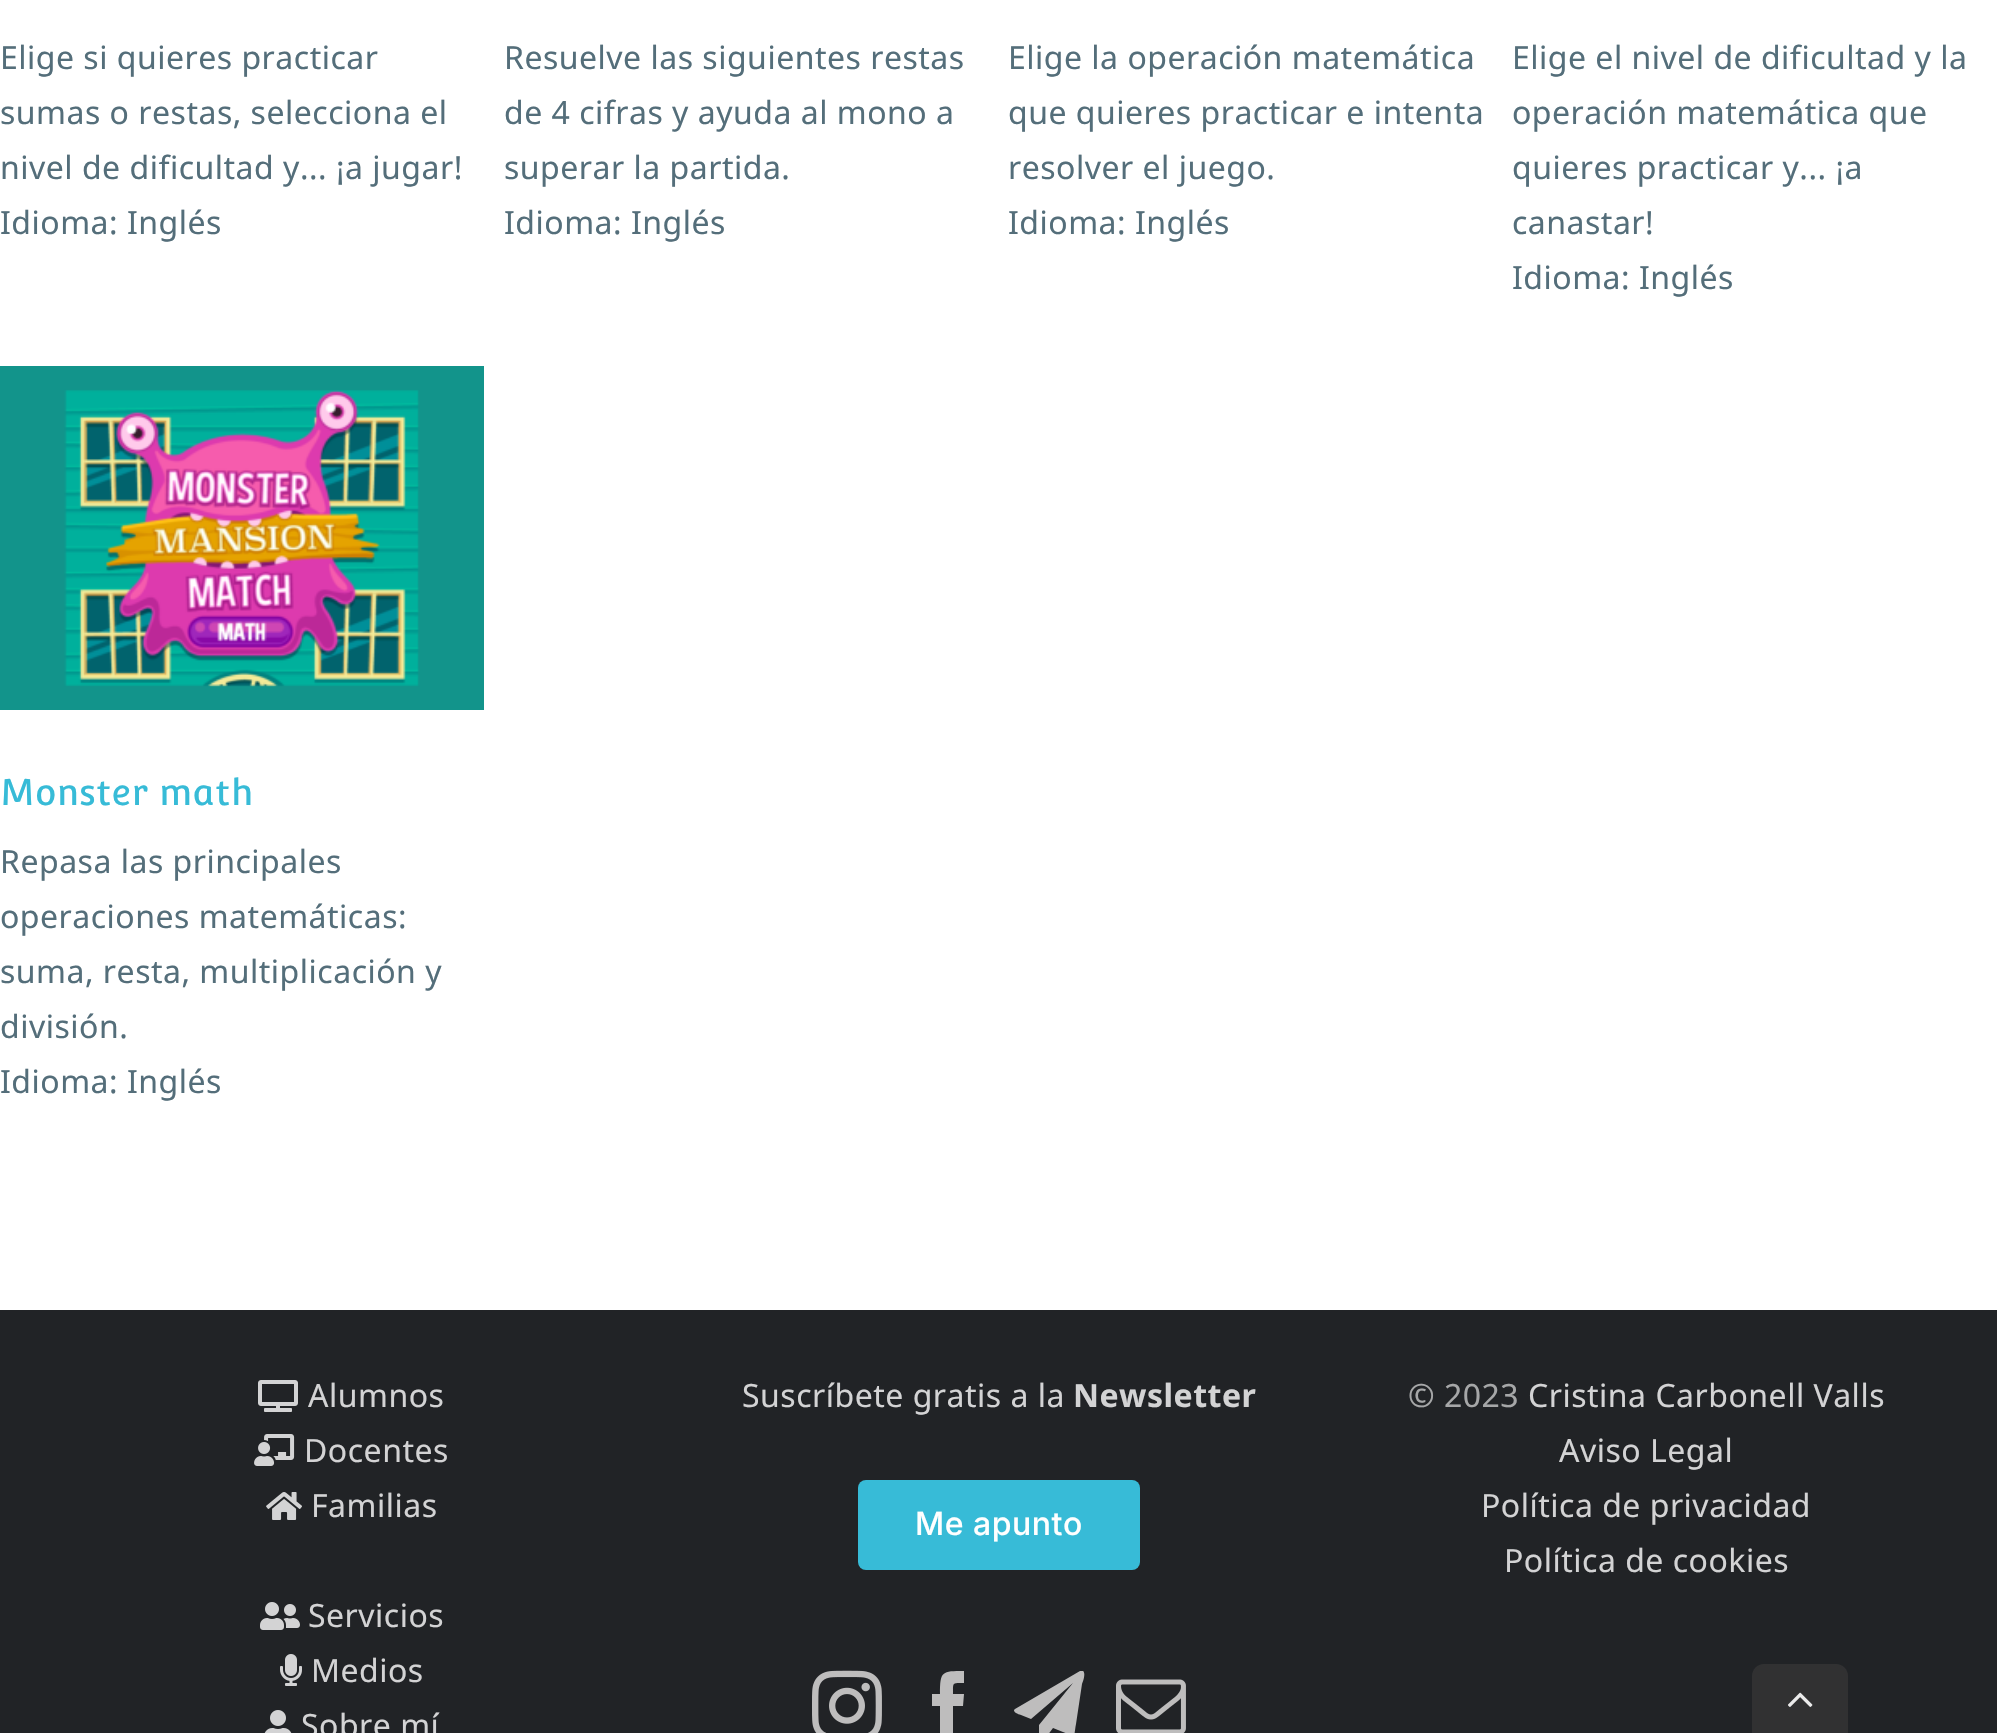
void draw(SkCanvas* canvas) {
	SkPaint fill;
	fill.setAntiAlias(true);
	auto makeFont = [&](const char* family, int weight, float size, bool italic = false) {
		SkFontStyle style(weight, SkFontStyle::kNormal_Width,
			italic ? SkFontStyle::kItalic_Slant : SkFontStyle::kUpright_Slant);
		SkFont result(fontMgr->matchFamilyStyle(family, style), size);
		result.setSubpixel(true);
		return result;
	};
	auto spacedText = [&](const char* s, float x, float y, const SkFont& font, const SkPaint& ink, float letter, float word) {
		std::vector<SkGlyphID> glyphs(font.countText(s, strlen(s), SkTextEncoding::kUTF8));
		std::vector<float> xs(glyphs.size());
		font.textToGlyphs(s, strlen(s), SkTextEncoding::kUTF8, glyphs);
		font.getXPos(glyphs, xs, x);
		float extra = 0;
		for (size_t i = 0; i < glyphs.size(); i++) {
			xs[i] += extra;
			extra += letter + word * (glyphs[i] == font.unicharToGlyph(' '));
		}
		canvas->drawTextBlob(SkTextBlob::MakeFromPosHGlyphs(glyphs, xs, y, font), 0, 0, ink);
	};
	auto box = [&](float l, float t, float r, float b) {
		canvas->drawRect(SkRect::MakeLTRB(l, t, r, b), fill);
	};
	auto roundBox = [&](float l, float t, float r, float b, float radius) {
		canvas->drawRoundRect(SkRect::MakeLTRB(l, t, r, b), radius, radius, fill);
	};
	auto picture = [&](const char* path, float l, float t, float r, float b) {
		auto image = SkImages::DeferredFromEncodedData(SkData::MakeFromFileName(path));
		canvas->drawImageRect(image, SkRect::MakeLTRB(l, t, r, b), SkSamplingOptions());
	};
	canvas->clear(0xFFFFFFFF);
	picture("image0.png", 0, 366, 484, 710);
	fill.setColor(0xFF212326);
	box(0, 1310, 1997, 1733);
	picture("image1.png", 258, 1380, 298, 1412);
	picture("image2.png", 254, 1434, 295, 1466);
	picture("image3.png", 266, 1492, 302, 1520);
	picture("image4.png", 260, 1602, 300, 1630);
	picture("image5.png", 280, 1654, 302, 1686);
	picture("image6.png", 264, 1710, 292, 1733);
	fill.setColor(0xFF37BBD7);
	roundBox(858, 1480, 1140, 1570, 8);
	picture("image7.png", 812, 1670, 882, 1733);
	fill.setColor(0xFFBEBDBD);
	canvas->drawPath(SkPathBuilder().moveTo(953, 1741).lineTo(940, 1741).lineTo(940, 1706).lineTo(932, 1706).lineTo(932, 1694).lineTo(940, 1694).cubicTo(940, 1671, 942, 1671, 964, 1671).lineTo(964, 1683).cubicTo(952, 1683, 953, 1682, 953, 1694).lineTo(964, 1694).lineTo(963, 1706).lineTo(953, 1706).close().detach(), fill);
	canvas->drawPath(SkPathBuilder().moveTo(1083, 1671).cubicTo(1086, 1673, 1083, 1682, 1082, 1684).lineTo(1076, 1724).cubicTo(1074, 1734, 1076, 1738, 1068, 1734).lineTo(1053, 1728).lineTo(1047, 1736).cubicTo(1045, 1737, 1043, 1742, 1040, 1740).lineTo(1039, 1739).lineTo(1039, 1725).lineTo(1073, 1683).lineTo(1031, 1719).lineTo(1021, 1715).cubicTo(1020, 1715, 1011, 1712, 1015, 1709).lineTo(1080, 1671).cubicTo(1081, 1671, 1082, 1671, 1083, 1671).close().detach(), fill);
	picture("image8.png", 1116, 1679, 1186, 1733);
	fill.setColor(0xFF313132);
	canvas->drawPath(SkPathBuilder().moveTo(1764, 1664).lineTo(1836, 1664).cubicTo(1842.5f, 1664, 1848, 1669.5f, 1848, 1676).lineTo(1848, 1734).lineTo(1752, 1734).lineTo(1752, 1676).cubicTo(1752, 1669.5f, 1757.5f, 1664, 1764, 1664).close().detach(), fill);
	picture("image9.png", 1788, 1692, 1813, 1707);
	auto font1 = makeFont("Noto Sans", 400, 32);
	fill.setColor(0xFF546E7A);
	spacedText("Elige si quieres practicar", 0, 69, font1, fill, 0.5f, 0);
	spacedText("sumas o restas, selecciona el", 0, 124, font1, fill, 0.5f, 0);
	spacedText("nivel de dificultad y... ¡a jugar!", 0, 179, font1, fill, 0.5f, 0);
	spacedText("Idioma: Inglés", 0, 234, font1, fill, 0.5f, 0);
	spacedText("Resuelve las siguientes restas", 504, 69, font1, fill, 0.5f, 0);
	spacedText("de 4 cifras y ayuda al mono a", 504, 124, font1, fill, 0.5f, 0);
	spacedText("superar la partida.", 504, 179, font1, fill, 0.5f, 0);
	spacedText("Idioma: Inglés", 504, 234, font1, fill, 0.5f, 0);
	spacedText("Elige la operación matemática", 1008, 69, font1, fill, 0.5f, 0);
	spacedText("que quieres practicar e intenta", 1008, 124, font1, fill, 0.5f, 0);
	spacedText("resolver el juego.", 1008, 179, font1, fill, 0.5f, 0);
	spacedText("Idioma: Inglés", 1008, 234, font1, fill, 0.5f, 0);
	spacedText("Elige el nivel de dificultad y la", 1512, 69, font1, fill, 0.5f, 0);
	spacedText("operación matemática que", 1512, 124, font1, fill, 0.5f, 0);
	spacedText("quieres practicar y... ¡a", 1512, 179, font1, fill, 0.5f, 0);
	spacedText("canastar!", 1512, 234, font1, fill, 0.5f, 0);
	spacedText("Idioma: Inglés", 1512, 289, font1, fill, 0.5f, 0);
	auto font2 = makeFont("Convergence", 400, 36);
	fill.setColor(0xFF37BBD7);
	spacedText("Monster math", 0, 805, font2, fill, 0.5f, 0);
	fill.setColor(0xFF546E7A);
	spacedText("Repasa las principales", 0, 873, font1, fill, 0.5f, 0);
	spacedText("operaciones matemáticas:", 0, 928, font1, fill, 0.5f, 0);
	spacedText("suma, resta, multiplicación y", 0, 983, font1, fill, 0.5f, 0);
	spacedText("división.", 0, 1038, font1, fill, 0.5f, 0);
	spacedText("Idioma: Inglés", 0, 1093, font1, fill, 0.5f, 0);
	fill.setColor(0xFFD3D3D4);
	spacedText("Alumnos", 308, 1407, font1, fill, 0.5f, 0);
	spacedText("Docentes", 304, 1462, font1, fill, 0.5f, 0);
	spacedText("Familias", 311, 1517, font1, fill, 0.5f, 0);
	spacedText("Servicios", 308, 1627, font1, fill, 0.5f, 0);
	spacedText("Medios", 311, 1682, font1, fill, 0.5f, 0);
	spacedText("Sobre mí", 301, 1737, font1, fill, 0.5f, 0);
	spacedText("Suscríbete gratis a la", 742, 1407, font1, fill, 0.5f, 0);
	auto font3 = makeFont("Noto Sans", 700, 32);
	spacedText("Newsletter", 1073, 1407, font3, fill, 0.5f, 0);
	auto font4 = makeFont("Inter", 500, 32);
	fill.setColor(0xFFFFFFFF);
	spacedText("Me apunto", 915, 1535, font4, fill, 0.5f, 0);
	fill.setColor(0xFFA6A7A8);
	spacedText("© 2023", 1408, 1407, font1, fill, 0.5f, 0);
	fill.setColor(0xFFD3D3D4);
	spacedText("Cristina Carbonell Valls", 1528, 1407, font1, fill, 0.5f, 0);
	spacedText("Aviso Legal", 1559, 1462, font1, fill, 0.5f, 0);
	spacedText("Política de privacidad", 1481, 1517, font1, fill, 0.5f, 0);
	spacedText("Política de cookies", 1504, 1572, font1, fill, 0.5f, 0);
}
